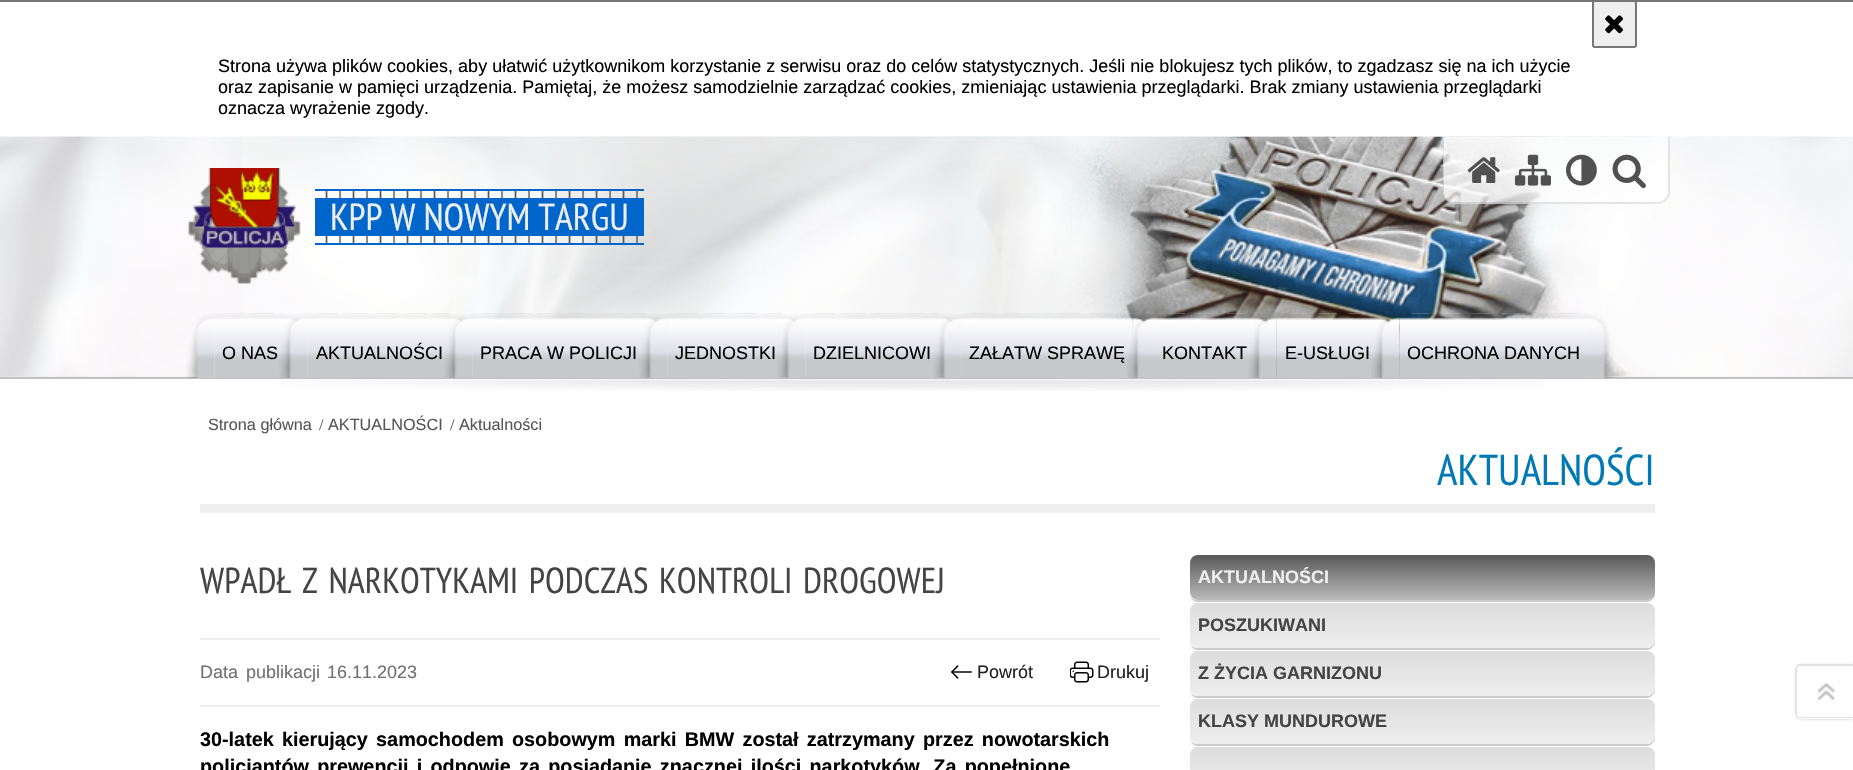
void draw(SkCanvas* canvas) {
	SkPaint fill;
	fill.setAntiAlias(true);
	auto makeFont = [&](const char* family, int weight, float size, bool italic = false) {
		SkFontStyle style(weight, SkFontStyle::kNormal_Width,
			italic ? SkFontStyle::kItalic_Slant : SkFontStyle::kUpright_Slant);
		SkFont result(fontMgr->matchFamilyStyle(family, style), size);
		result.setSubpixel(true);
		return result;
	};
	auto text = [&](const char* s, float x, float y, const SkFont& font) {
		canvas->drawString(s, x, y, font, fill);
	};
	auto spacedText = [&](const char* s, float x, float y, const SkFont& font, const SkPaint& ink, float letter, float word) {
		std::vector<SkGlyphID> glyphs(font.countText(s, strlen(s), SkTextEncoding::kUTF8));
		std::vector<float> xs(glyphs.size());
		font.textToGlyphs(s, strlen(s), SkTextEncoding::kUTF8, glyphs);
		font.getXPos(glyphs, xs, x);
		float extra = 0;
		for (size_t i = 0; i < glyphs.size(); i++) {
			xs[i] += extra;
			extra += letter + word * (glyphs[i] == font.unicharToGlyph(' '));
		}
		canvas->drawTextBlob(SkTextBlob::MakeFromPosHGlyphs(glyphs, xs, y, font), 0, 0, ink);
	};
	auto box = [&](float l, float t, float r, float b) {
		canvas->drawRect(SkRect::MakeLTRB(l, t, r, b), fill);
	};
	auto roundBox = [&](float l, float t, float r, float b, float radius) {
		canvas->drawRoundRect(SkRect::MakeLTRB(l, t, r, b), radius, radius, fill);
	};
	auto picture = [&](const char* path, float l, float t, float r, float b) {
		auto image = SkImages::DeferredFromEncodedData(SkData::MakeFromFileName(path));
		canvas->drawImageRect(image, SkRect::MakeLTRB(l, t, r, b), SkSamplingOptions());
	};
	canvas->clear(0xFFFFFFFF);
	fill.setColor(0xFF767676);
	box(0, 0, 1853, 2);
	fill.setColor(0xFFEFEFEF);
	canvas->drawRoundRect(SkRect::MakeLTRB(1593, 1, 1636, 47), 2, 2, fill);
	fill.setStyle(SkPaint::kStroke_Style);
	fill.setStrokeWidth(2);
	fill.setColor(0xFF767676);
	canvas->drawRoundRect(SkRect::MakeLTRB(1593, 1, 1636, 47), 2, 2, fill);
	picture("image0.png", 1605, 15, 1623, 34);
	picture("image1.png", 0, 136, 1853, 377);
	picture("image2.png", 281, 379, 1544, 391);
	picture("image3.png", 242, 136, 1808, 377);
	fill.setStyle(SkPaint::kFill_Style);
	fill.setColor(0xFFC1C1C1);
	box(0, 377, 1853, 379);
	fill.setColor(0xB3FFFFFF);
	canvas->drawPath(SkPathBuilder().moveTo(1443, 137).lineTo(1670, 137).lineTo(1670, 192).cubicTo(1670, 198.5f, 1664.5f, 204, 1658, 204).lineTo(1455, 204).cubicTo(1448.5f, 204, 1443, 198.5f, 1443, 192).close().detach(), fill);
	canvas->save();
	canvas->clipRect(SkRect::MakeLTRB(0, 137, 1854, 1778));
	fill.setColor(0x1A000000);
	canvas->drawPath(SkPathBuilder(SkPathFillType::kEvenOdd).moveTo(1443, 136).lineTo(1670, 136).lineTo(1670, 192).cubicTo(1670, 199, 1664, 204, 1657, 204).lineTo(1455, 204).cubicTo(1448, 204, 1443, 199, 1443, 192).close().moveTo(1444, 136).lineTo(1668, 136).lineTo(1668, 192).cubicTo(1668, 198, 1663, 202, 1657, 202).lineTo(1455, 202).cubicTo(1449, 202, 1444, 198, 1444, 192).close().detach(), fill);
	canvas->restore();
	picture("image4.png", 1467, 157, 1500, 183);
	picture("image5.png", 1515, 154, 1551, 186);
	picture("image6.png", 1566, 154, 1597, 186);
	picture("image7.png", 1612, 154, 1646, 189);
	picture("image8.png", 325, 191, 638, 243);
	fill.setColor(0xFF0066CC);
	box(315, 189, 644, 191);
	box(315, 243, 644, 245);
	picture("image9.png", 187, 168, 301, 284);
	box(315, 198, 644, 236);
	picture("image10.png", 285, 314, 313, 378);
	picture("image11.png", 186, 314, 215, 378);
	picture("image12.png", 214, 313, 285, 378);
	picture("image13.png", 450, 314, 478, 378);
	picture("image14.png", 279, 314, 308, 378);
	picture("image15.png", 307, 313, 450, 378);
	picture("image16.png", 645, 314, 673, 378);
	picture("image17.png", 444, 314, 473, 378);
	picture("image18.png", 472, 313, 645, 378);
	picture("image19.png", 783, 314, 811, 378);
	picture("image20.png", 639, 314, 668, 378);
	picture("image21.png", 667, 313, 783, 378);
	picture("image22.png", 939, 314, 967, 378);
	picture("image23.png", 777, 314, 806, 378);
	picture("image24.png", 805, 313, 939, 378);
	picture("image25.png", 1132, 315, 1161, 378);
	picture("image26.png", 933, 314, 962, 378);
	picture("image27.png", 961, 313, 1133, 378);
	picture("image28.png", 1254, 314, 1282, 378);
	picture("image29.png", 1127, 315, 1155, 378);
	picture("image30.png", 1155, 313, 1254, 378);
	picture("image31.png", 1377, 315, 1405, 378);
	picture("image32.png", 1248, 315, 1277, 378);
	picture("image33.png", 1276, 313, 1377, 378);
	picture("image34.png", 1587, 314, 1615, 378);
	picture("image35.png", 1371, 317, 1400, 378);
	picture("image36.png", 1399, 313, 1587, 378);
	fill.setColor(0xFFEFEFEF);
	box(200, 504, 1655, 513);
	fill.setColor(0xFFEEEEEE);
	box(200, 638, 1160, 640);
	box(200, 705, 1160, 707);
	picture("image37.png", 951, 665, 972, 679);
	picture("image38.png", 1070, 661, 1094, 683);
	fill.setColor(0xFFCCCCCC);
	canvas->drawPath(SkPathBuilder().moveTo(1190, 596).cubicTo(1191, 599, 1194, 602, 1198, 602).lineTo(1647, 602).cubicTo(1651, 602, 1655, 598, 1655, 594).lineTo(1655, 565).lineTo(1654, 562).lineTo(1654, 592).cubicTo(1654, 597, 1651, 600, 1647, 600).lineTo(1197, 600).cubicTo(1194, 600, 1191, 598, 1190, 596).close().detach(), fill);
	{
		const SkColor colors[] = {0xFFBBBBBB, 0xFF595959};
		const float stops[] = {0, 1};
		const SkPoint ends[] = {{1422, 600}, {1422, 555}};
		fill.setShader(SkGradientShader::MakeLinear(ends, colors, stops, 2, SkTileMode::kClamp));
		fill.setAlpha(255);
	}
	roundBox(1190, 555, 1655, 600, 8);
	fill.setShader(nullptr);
	fill.setColor(0xFFCCCCCC);
	canvas->drawPath(SkPathBuilder().moveTo(1190, 644).cubicTo(1191, 647, 1194, 650, 1198, 650).lineTo(1647, 650).cubicTo(1651, 650, 1655, 646, 1655, 642).lineTo(1655, 613).lineTo(1654, 610).lineTo(1654, 640).cubicTo(1654, 645, 1651, 648, 1647, 648).lineTo(1197, 648).cubicTo(1194, 648, 1191, 646, 1190, 644).close().detach(), fill);
	{
		const SkColor colors[] = {0xFFEEEEEE, 0xFFDDDDDD};
		const float stops[] = {0, 1};
		const SkPoint ends[] = {{1422, 648}, {1422, 603}};
		fill.setShader(SkGradientShader::MakeLinear(ends, colors, stops, 2, SkTileMode::kClamp));
		fill.setAlpha(255);
	}
	roundBox(1190, 603, 1655, 648, 8);
	fill.setShader(nullptr);
	fill.setColor(0xFFCCCCCC);
	canvas->drawPath(SkPathBuilder().moveTo(1190, 692).cubicTo(1191, 695, 1194, 698, 1198, 698).lineTo(1647, 698).cubicTo(1651, 698, 1655, 694, 1655, 690).lineTo(1655, 661).lineTo(1654, 658).lineTo(1654, 688).cubicTo(1654, 693, 1651, 696, 1647, 696).lineTo(1197, 696).cubicTo(1194, 696, 1191, 694, 1190, 692).close().detach(), fill);
	{
		const SkColor colors[] = {0xFFEEEEEE, 0xFFDDDDDD};
		const float stops[] = {0, 1};
		const SkPoint ends[] = {{1422, 696}, {1422, 651}};
		fill.setShader(SkGradientShader::MakeLinear(ends, colors, stops, 2, SkTileMode::kClamp));
		fill.setAlpha(255);
	}
	roundBox(1190, 651, 1655, 696, 8);
	fill.setShader(nullptr);
	fill.setColor(0xFFCCCCCC);
	canvas->drawPath(SkPathBuilder().moveTo(1190, 740).cubicTo(1191, 743, 1194, 746, 1198, 746).lineTo(1647, 746).cubicTo(1651, 746, 1655, 742, 1655, 738).lineTo(1655, 709).lineTo(1654, 706).lineTo(1654, 736).cubicTo(1654, 741, 1651, 744, 1647, 744).lineTo(1197, 744).cubicTo(1194, 744, 1191, 742, 1190, 740).close().detach(), fill);
	{
		const SkColor colors[] = {0xFFEEEEEE, 0xFFDDDDDD};
		const float stops[] = {0, 1};
		const SkPoint ends[] = {{1422, 744}, {1422, 699}};
		fill.setShader(SkGradientShader::MakeLinear(ends, colors, stops, 2, SkTileMode::kClamp));
		fill.setAlpha(255);
	}
	roundBox(1190, 699, 1655, 744, 8);
	{
		const SkColor colors[] = {0xFFEEEEEE, 0xFFDDDDDD};
		const float stops[] = {0, 1};
		const SkPoint ends[] = {{1422, 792}, {1422, 747}};
		fill.setShader(SkGradientShader::MakeLinear(ends, colors, stops, 2, SkTileMode::kClamp));
		fill.setAlpha(255);
	}
	roundBox(1190, 747, 1655, 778, 8);
	fill.setShader(nullptr);
	fill.setColor(0x40000000);
	fill.setMaskFilter(SkMaskFilter::MakeBlur(kNormal_SkBlurStyle, 1.5f));
	canvas->drawRoundRect(SkRect::MakeLTRB(1796, 665, 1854, 719), 5, 5, fill);
	fill.setMaskFilter(nullptr);
	fill.setColor(0xFFFEFEFE);
	canvas->drawPath(SkPathBuilder().moveTo(1801, 665).lineTo(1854, 665).lineTo(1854, 719).lineTo(1801, 719).cubicTo(1798, 719, 1796, 717, 1796, 714).lineTo(1796, 670).cubicTo(1796, 667, 1798, 665, 1801, 665).close().detach(), fill);
	fill.setColor(0xFFE1E1E1);
	canvas->drawPath(SkPathBuilder(SkPathFillType::kEvenOdd).moveTo(1800, 664).lineTo(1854, 664).lineTo(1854, 718).lineTo(1800, 718).cubicTo(1798, 718, 1796, 716, 1796, 714).lineTo(1796, 669).cubicTo(1796, 667, 1798, 664, 1800, 664).close().moveTo(1800, 666).lineTo(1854, 666).lineTo(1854, 717).lineTo(1800, 717).cubicTo(1798, 717, 1797, 716, 1797, 714).lineTo(1797, 669).cubicTo(1797, 667, 1798, 666, 1800, 666).close().detach(), fill);
	picture("image39.png", 1818, 682, 1835, 701);
	auto font1 = makeFont("Liberation Sans", 400, 18);
	fill.setColor(0xFF000000);
	text("Strona używa plików cookies, aby ułatwić użytkownikom korzystanie z serwisu oraz do celów statystycznych. Jeśli nie blokujesz tych plików, to zgadzasz się na ich użycie", 218, 72, font1);
	text("oraz zapisanie w pamięci urządzenia. Pamiętaj, że możesz samodzielnie zarządzać cookies, zmieniając ustawienia przeglądarki. Brak zmiany ustawienia przeglądarki", 218, 93, font1);
	text("oznacza wyrażenie zgody.", 218, 114, font1);
	auto font2 = makeFont("PT Sans Narrow", 400, 37.5f);
	fill.setColor(0xFFEEEEEE);
	text("KPP W NOWYM TARGU", 330, 230, font2);
	fill.setColor(0xFF000000);
	text("O NAS", 222, 359, font1);
	text("AKTUALNOŚCI", 316, 359, font1);
	text("PRACA W POLICJI", 480, 359, font1);
	text("JEDNOSTKI", 675, 359, font1);
	text("DZIELNICOWI", 813, 359, font1);
	text("ZAŁATW SPRAWĘ", 969, 359, font1);
	text("KONTAKT", 1162, 359, font1);
	text("E-USŁUGI", 1285, 359, font1);
	text("OCHRONA DANYCH", 1407, 359, font1);
	auto font3 = makeFont("Liberation Sans", 400, 16.25f);
	fill.setColor(0xFF555555);
	text("Strona główna", 208, 430, font3);
	auto font4 = makeFont("Liberation Serif", 400, 16.25f);
	text("/", 319, 430, font4);
	text("AKTUALNOŚCI", 328, 430, font3);
	text("/", 450, 430, font4);
	text("Aktualności", 459, 430, font3);
	auto font5 = makeFont("PT Sans Narrow", 400, 43.25f);
	fill.setColor(0xFF0079B5);
	text("AKTUALNOŚCI", 1437, 485, font5);
	auto font6 = makeFont("PT Sans Narrow", 400, 36);
	fill.setColor(0xFF444444);
	spacedText("WPADŁ Z NARKOTYKAMI PODCZAS KONTROLI DROGOWEJ", 200, 593, font6, fill, 0, 3);
	fill.setColor(0xFF716F6F);
	spacedText("Data publikacji", 200, 678, font1, fill, 0, 3);
	text("16.11.2023", 327, 678, font1);
	fill.setColor(0xFF222222);
	text("Powrót", 977, 678, font1);
	text("Drukuj", 1097, 678, font1);
	auto font7 = makeFont("Liberation Sans", 700, 19.8f);
	fill.setColor(0xFF000000);
	spacedText("30-latek kierujący samochodem osobowym marki BMW został zatrzymany przez nowotarskich", 200, 746, font7, fill, 0, 2.75f);
	spacedText("policjantów prewencji i odpowie za posiadanie znacznej ilości narkotyków. Za popełnione", 200, 773, font7, fill, 0, 2.75f);
	auto font8 = makeFont("Liberation Sans", 700, 18);
	fill.setColor(0xFFEEEEEE);
	text("AKTUALNOŚCI", 1198, 583, font8);
	fill.setColor(0xFF444444);
	text("POSZUKIWANI", 1198, 631, font8);
	text("Z ŻYCIA GARNIZONU", 1198, 679, font8);
	text("KLASY MUNDUROWE", 1198, 727, font8);
}
